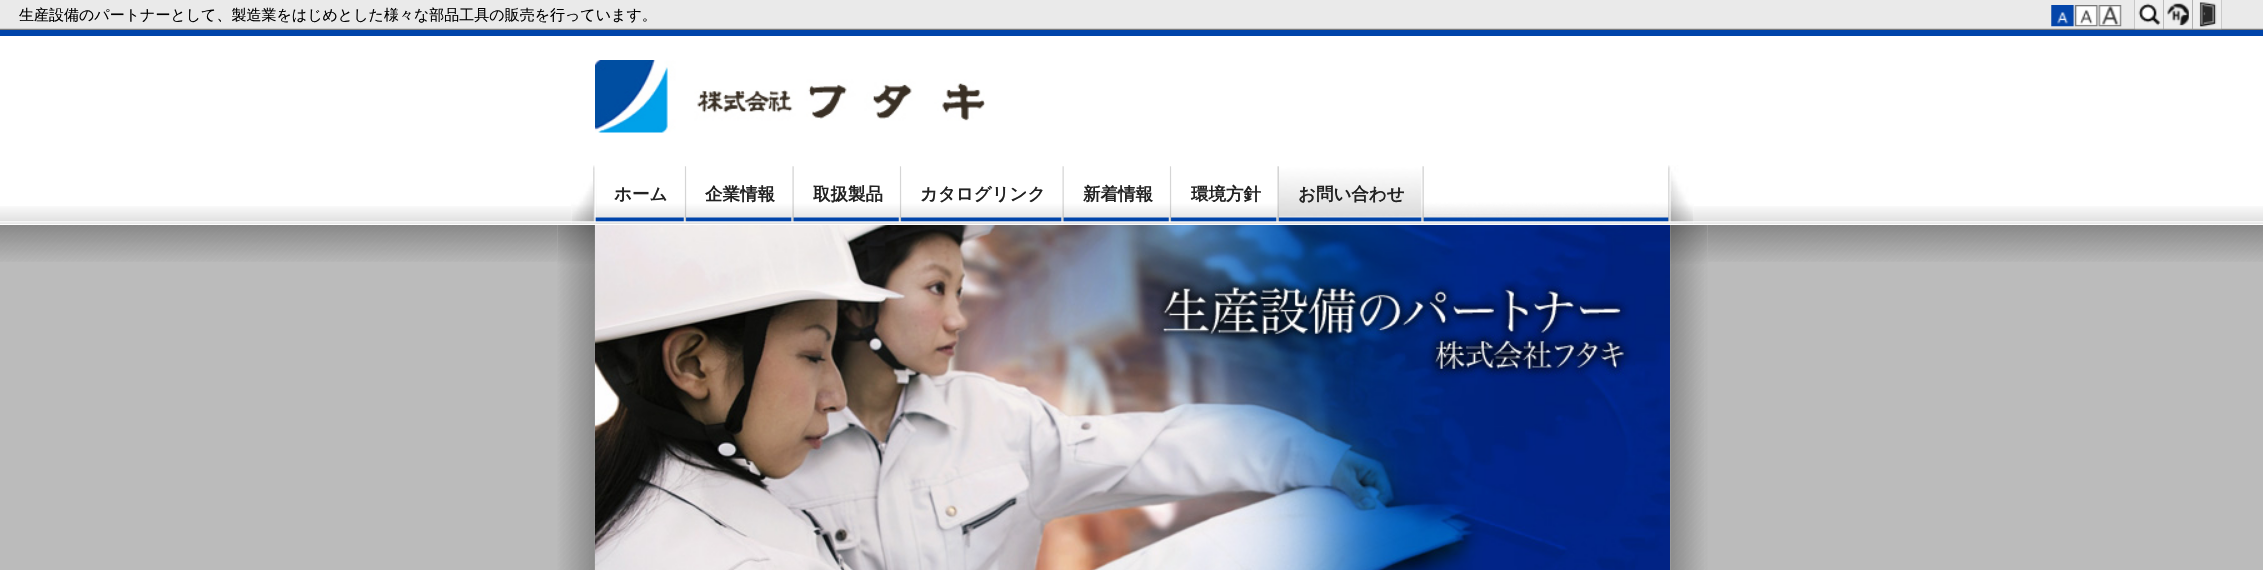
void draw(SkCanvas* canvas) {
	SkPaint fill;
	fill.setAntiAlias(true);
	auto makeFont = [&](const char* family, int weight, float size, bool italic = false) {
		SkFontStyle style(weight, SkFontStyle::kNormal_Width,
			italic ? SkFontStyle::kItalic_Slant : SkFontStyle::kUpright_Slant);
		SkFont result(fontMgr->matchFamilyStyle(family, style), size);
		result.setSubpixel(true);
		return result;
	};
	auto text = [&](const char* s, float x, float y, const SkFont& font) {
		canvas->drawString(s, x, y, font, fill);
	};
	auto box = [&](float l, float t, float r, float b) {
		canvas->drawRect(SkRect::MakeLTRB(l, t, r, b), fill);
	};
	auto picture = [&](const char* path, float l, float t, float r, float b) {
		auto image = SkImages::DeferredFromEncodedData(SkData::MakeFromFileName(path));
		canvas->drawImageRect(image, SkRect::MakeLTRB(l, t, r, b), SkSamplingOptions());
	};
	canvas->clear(0xFFFFFFFF);
	picture("image0.png", 0, 0, 2263, 30);
	picture("image1.png", 2051, 5, 2075, 27);
	picture("image2.png", 2075, 5, 2098, 27);
	picture("image3.png", 2098, 5, 2122, 27);
	picture("image4.png", 2134, 0, 2164, 30);
	picture("image5.png", 2135, 0, 2164, 29);
	picture("image6.png", 2163, 0, 2193, 30);
	picture("image7.png", 2163, 0, 2193, 29);
	picture("image8.png", 2192, 0, 2222, 30);
	picture("image9.png", 2192, 0, 2222, 29);
	fill.setColor(0xFF0044AA);
	box(0, 30, 2263, 36);
	picture("image10.png", 595, 60, 985, 133);
	picture("image11.png", 0, 206, 2263, 224);
	fill.setColor(0xFFFFFFFF);
	box(571, 206, 1694, 224);
	picture("image12.png", 571, 165, 1694, 224);
	picture("image13.png", 596, 166, 687, 224);
	picture("image15.png", 686, 166, 794, 224);
	picture("image14.png", 596, 166, 687, 222);
	picture("image17.png", 793, 166, 902, 224);
	picture("image16.png", 686, 166, 794, 222);
	picture("image19.png", 901, 166, 1064, 224);
	picture("image18.png", 793, 166, 902, 222);
	picture("image21.png", 1063, 166, 1172, 224);
	picture("image20.png", 901, 166, 1064, 222);
	picture("image23.png", 1171, 166, 1279, 224);
	picture("image22.png", 1063, 166, 1172, 222);
	picture("image25.png", 1278, 166, 1424, 224);
	picture("image24.png", 1171, 166, 1279, 222);
	fill.setColor(0xFFBBBBBB);
	box(0, 262, 2263, 570);
	picture("image26.png", 0, 225, 2263, 262);
	picture("image27.png", 557, 225, 1708, 570);
	picture("image28.png", 557, 225, 1708, 264);
	picture("image29.png", 595, 225, 1670, 570);
	auto font1 = makeFont("WenQuanYi Zen Hei", 500, 15);
	fill.setColor(0xFF000000);
	text("生産設備のパートナーとして、製造業をはじめとした様々な部品工具の販売を行っています。", 19, 20, font1);
	auto font2 = makeFont("WenQuanYi Zen Hei", 700, 17.5f);
	fill.setColor(0xFF222222);
	text("ホーム", 614, 200, font2);
	text("企業情報", 705, 200, font2);
	text("取扱製品", 813, 200, font2);
	text("カタログリンク", 920, 200, font2);
	text("新着情報", 1083, 200, font2);
	text("環境方針", 1191, 200, font2);
	text("お問い合わせ", 1298, 200, font2);
}
